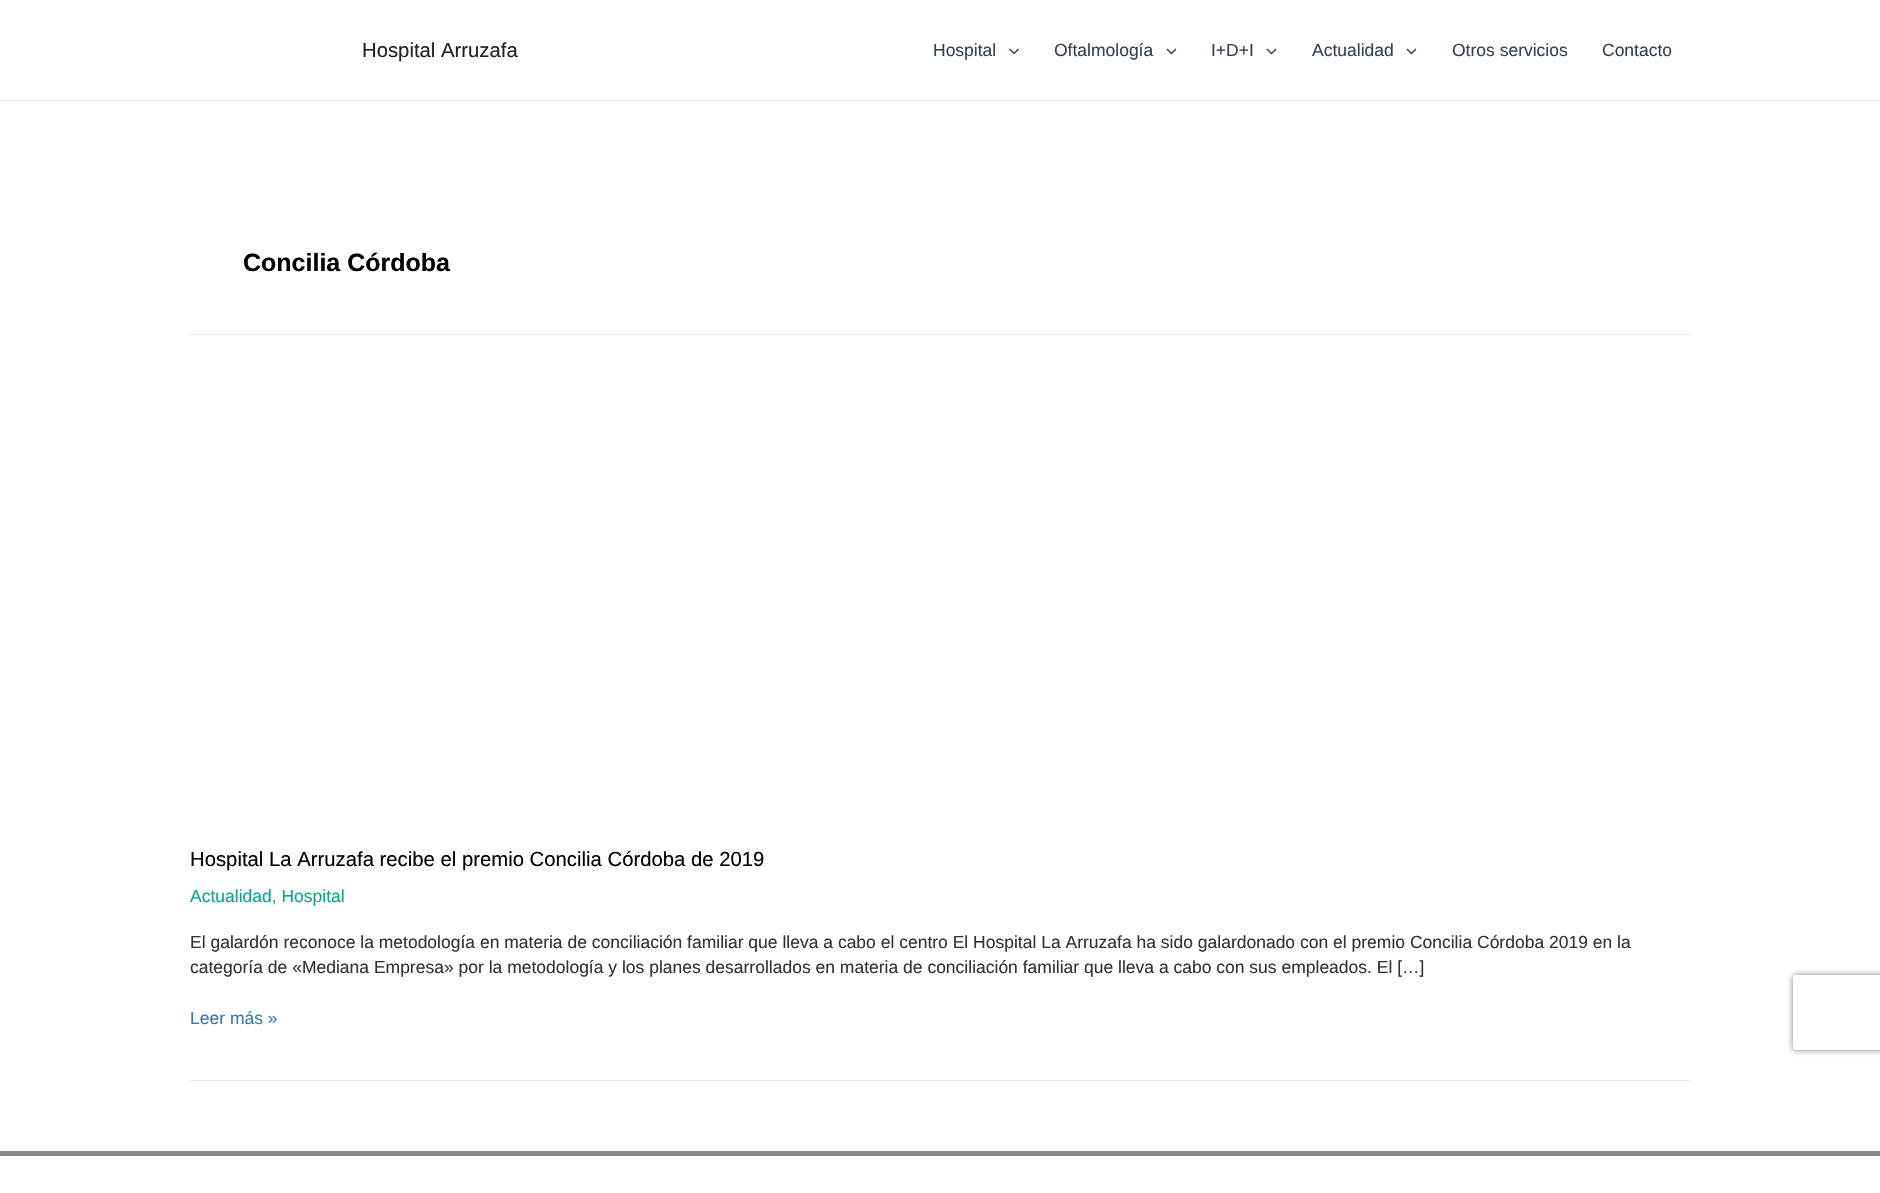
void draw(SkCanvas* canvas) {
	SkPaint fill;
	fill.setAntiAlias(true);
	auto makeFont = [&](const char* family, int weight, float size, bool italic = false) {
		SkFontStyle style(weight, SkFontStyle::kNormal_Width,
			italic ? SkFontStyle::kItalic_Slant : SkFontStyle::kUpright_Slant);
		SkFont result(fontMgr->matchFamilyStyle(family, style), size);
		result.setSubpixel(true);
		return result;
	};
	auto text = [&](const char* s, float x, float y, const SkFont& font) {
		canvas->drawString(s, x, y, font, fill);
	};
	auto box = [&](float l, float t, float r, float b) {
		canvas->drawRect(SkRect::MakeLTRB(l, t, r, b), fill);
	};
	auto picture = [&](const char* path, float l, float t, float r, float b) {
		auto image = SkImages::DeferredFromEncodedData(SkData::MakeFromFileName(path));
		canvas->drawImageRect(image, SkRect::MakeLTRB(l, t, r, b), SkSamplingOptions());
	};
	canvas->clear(0xFFFFFFFF);
	fill.setColor(0xFFEAEAEA);
	box(0, 100, 1880, 101);
	picture("image0.png", 1009, 48, 1019, 55);
	picture("image1.png", 1166, 48, 1176, 55);
	picture("image2.png", 1266, 48, 1277, 55);
	picture("image1.png", 1406, 48, 1416, 55);
	fill.setColor(0xFFE2E8F0);
	box(190, 334, 1690, 335);
	box(190, 1080, 1690, 1081);
	fill.setColor(0xFF898989);
	box(0, 1151, 1880, 1156);
	canvas->save();
	canvas->clipPath(SkPathBuilder(SkPathFillType::kEvenOdd).moveTo(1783, 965).lineTo(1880, 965).lineTo(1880, 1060).lineTo(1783, 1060).close().moveTo(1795.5f, 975).lineTo(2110.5f, 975).cubicTo(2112, 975, 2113, 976, 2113, 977.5f).lineTo(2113, 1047.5f).cubicTo(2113, 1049, 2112, 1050, 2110.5f, 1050).lineTo(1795.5f, 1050).cubicTo(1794, 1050, 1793, 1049, 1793, 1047.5f).lineTo(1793, 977.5f).cubicTo(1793, 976, 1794, 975, 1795.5f, 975).close().detach(), true);
	fill.setColor(0xFF808080);
	fill.setMaskFilter(SkMaskFilter::MakeBlur(kNormal_SkBlurStyle, 3));
	canvas->drawRoundRect(SkRect::MakeLTRB(1793, 975, 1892, 1050), 2.5f, 2.5f, fill);
	fill.setMaskFilter(nullptr);
	canvas->restore();
	auto font1 = makeFont("Liberation Sans", 400, 20.3f);
	fill.setColor(0xFF222222);
	text("Hospital Arruzafa", 362, 57, font1);
	auto font2 = makeFont("Liberation Sans", 400, 17.5f);
	fill.setColor(0xFF334155);
	text("Hospital", 933, 56, font2);
	text("Oftalmología", 1054, 56, font2);
	text("I+D+I", 1211, 56, font2);
	text("Actualidad", 1312, 56, font2);
	text("Otros servicios", 1452, 56, font2);
	text("Contacto", 1602, 56, font2);
	auto font3 = makeFont("Liberation Sans", 700, 25);
	fill.setColor(0xFF000000);
	text("Concilia Córdoba", 243, 271, font3);
	text("Hospital La Arruzafa recibe el premio Concilia Córdoba de 2019", 190, 866, font1);
	fill.setColor(0xFF00AB84);
	text("Actualidad, Hospital", 190, 902, font2);
	fill.setColor(0xFF333333);
	text("El galardón reconoce la metodología en materia de conciliación familiar que lleva a cabo el centro El Hospital La Arruzafa ha sido galardonado con el premio Concilia Córdoba 2019 en la", 190, 948, font2);
	text("categoría de «Mediana Empresa» por la metodología y los planes desarrollados en materia de conciliación familiar que lleva a cabo con sus empleados. El […]", 190, 973, font2);
	fill.setColor(0xFF337AB7);
	text("Leer más »", 190, 1024, font2);
}
